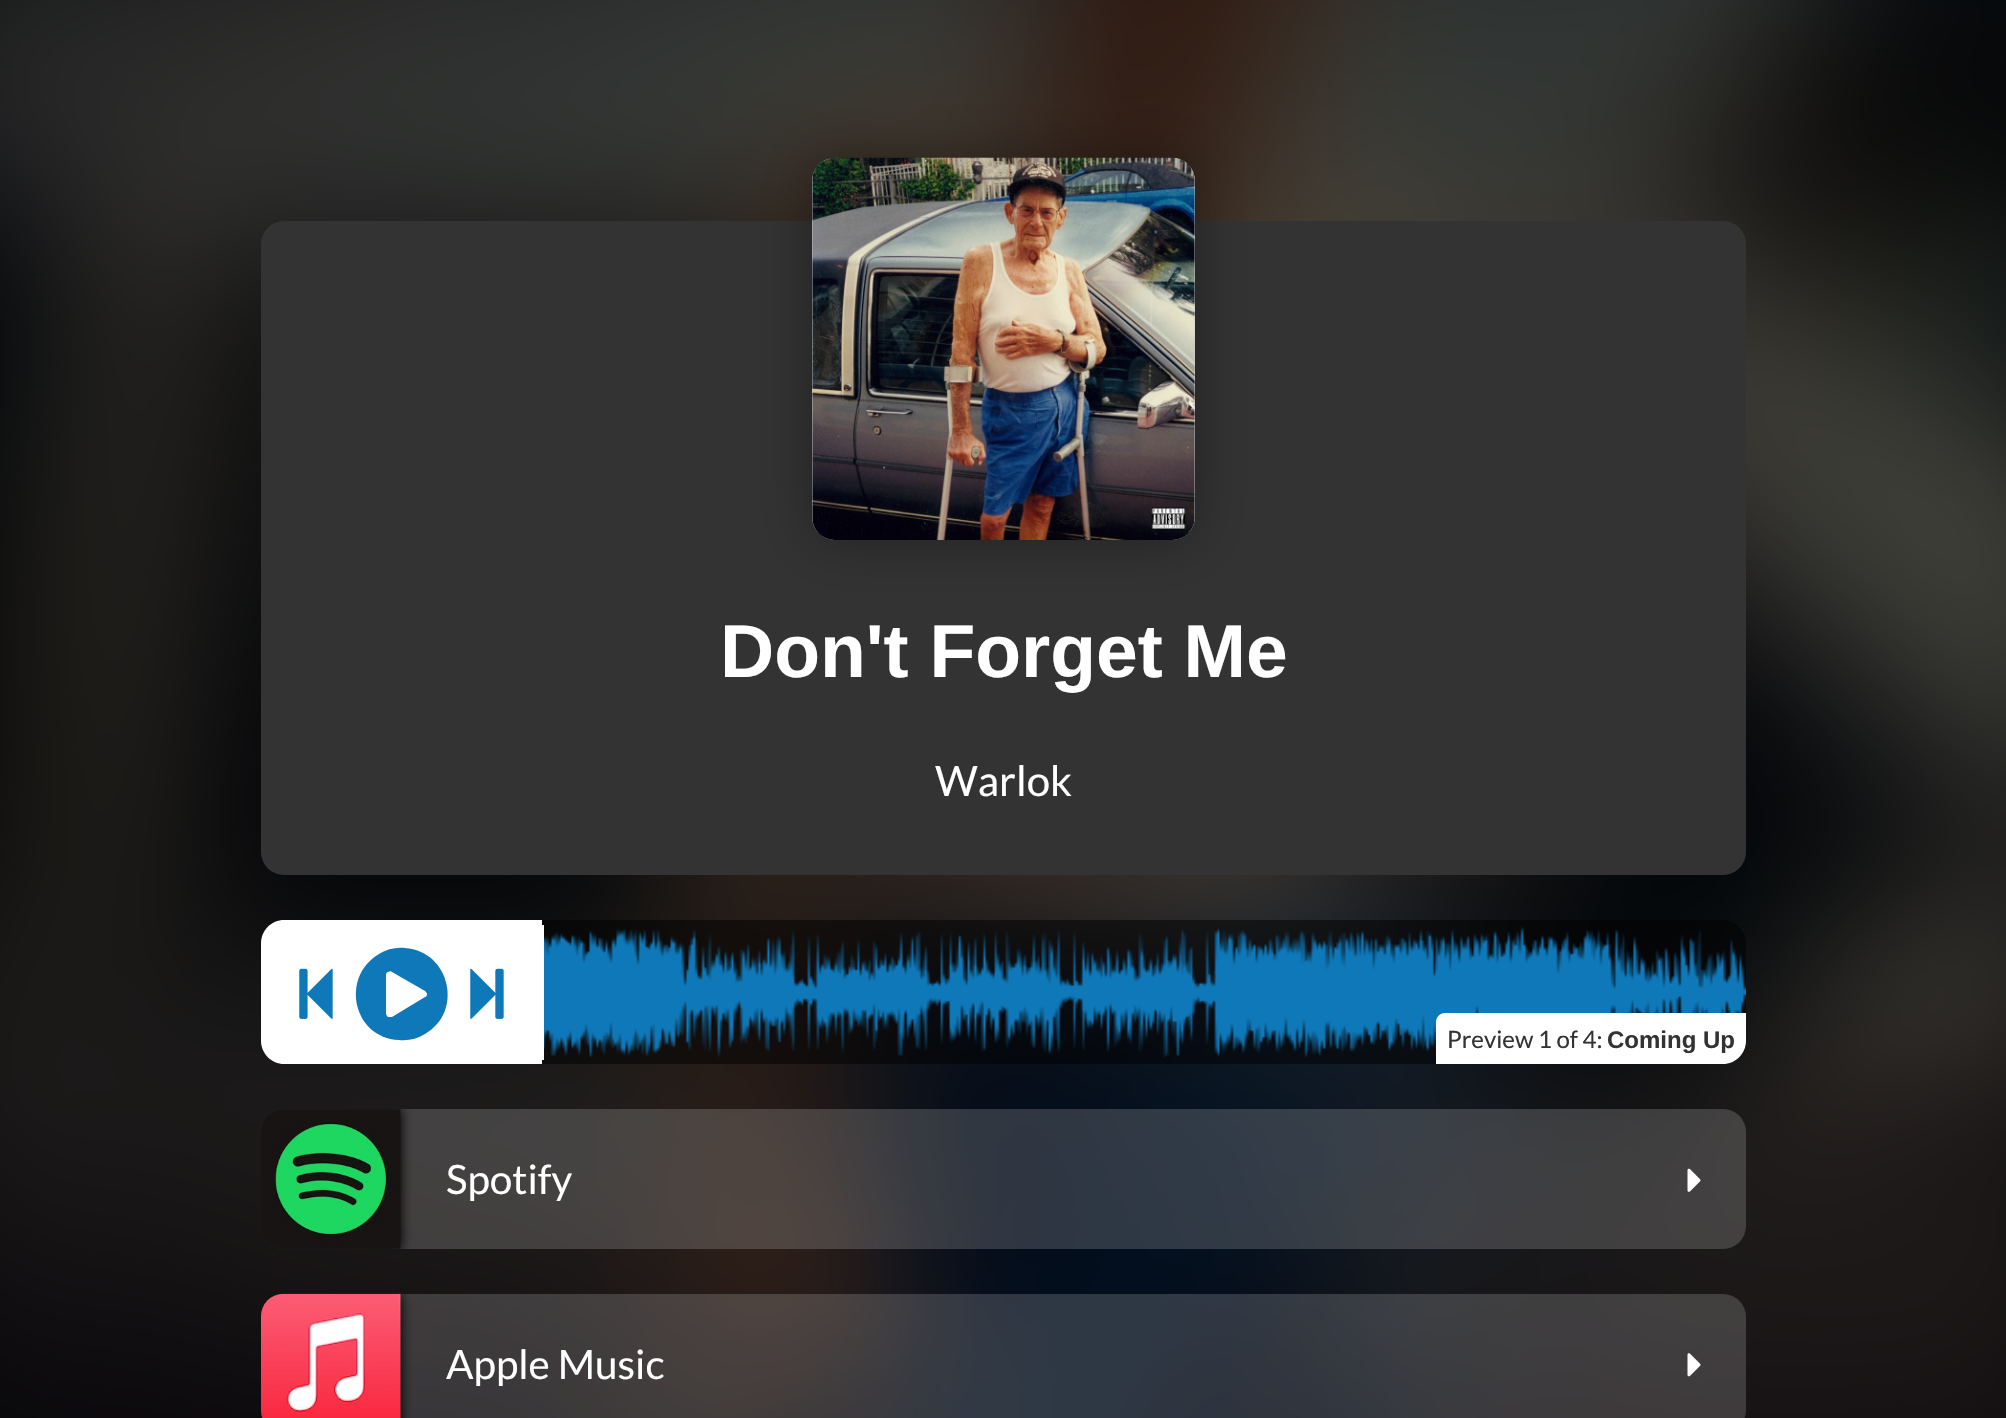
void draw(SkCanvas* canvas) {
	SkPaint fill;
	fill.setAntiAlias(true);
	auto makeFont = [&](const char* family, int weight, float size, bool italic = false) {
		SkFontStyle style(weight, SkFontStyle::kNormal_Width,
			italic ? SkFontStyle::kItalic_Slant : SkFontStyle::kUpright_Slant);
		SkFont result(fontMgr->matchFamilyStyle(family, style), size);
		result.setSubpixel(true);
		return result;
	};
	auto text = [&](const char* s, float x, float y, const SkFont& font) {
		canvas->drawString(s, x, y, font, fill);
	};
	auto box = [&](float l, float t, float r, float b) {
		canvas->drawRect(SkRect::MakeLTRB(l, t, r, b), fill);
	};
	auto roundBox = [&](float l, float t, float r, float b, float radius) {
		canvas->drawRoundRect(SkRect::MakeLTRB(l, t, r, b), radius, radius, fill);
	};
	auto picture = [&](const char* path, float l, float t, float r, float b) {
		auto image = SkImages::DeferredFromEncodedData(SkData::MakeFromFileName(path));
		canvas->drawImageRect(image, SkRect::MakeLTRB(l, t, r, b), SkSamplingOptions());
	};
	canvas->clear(0xFF000000);
	picture("image0.png", 0, 0, 2006, 1418);
	fill.setColor(0xFF333333);
	roundBox(261, 221, 1746, 875, 23);
	fill.setColor(0x59000000);
	fill.setMaskFilter(SkMaskFilter::MakeBlur(kNormal_SkBlurStyle, 28));
	canvas->drawRoundRect(SkRect::MakeLTRB(812, 158, 1195, 540), 23, 23, fill);
	fill.setMaskFilter(nullptr);
	fill.setColor(0xFFCCCCCC);
	roundBox(812, 158, 1195, 540, 23);
	picture("image1.png", 812, 157, 1195, 540);
	fill.setColor(0xFFFFFFFF);
	canvas->drawPath(SkPathBuilder().moveTo(284, 920).lineTo(542, 920).lineTo(542, 1064).lineTo(284, 1064).cubicTo(271.5f, 1064, 261, 1053.5f, 261, 1041).lineTo(261, 943).cubicTo(261, 930.5f, 271.5f, 920, 284, 920).close().detach(), fill);
	picture("image2.png", 299, 968, 333, 1019);
	fill.setColor(0xFF0F78B8);
	canvas->drawPath(SkPathBuilder().moveTo(379, 954).cubicTo(387, 949, 396, 947, 405, 948).cubicTo(450, 951, 464, 1012, 425, 1034).cubicTo(417, 1039, 408, 1041, 399, 1040).cubicTo(353, 1038, 340, 977, 379, 954).close().moveTo(425, 997).cubicTo(426, 997, 427, 996, 427, 994).cubicTo(427, 993, 426, 992, 425, 991).lineTo(392, 972).cubicTo(391, 971, 390, 971, 388, 972).cubicTo(387, 972, 386, 973, 386, 975).lineTo(386, 1013).cubicTo(386, 1015, 387, 1016, 388, 1017).lineTo(390, 1017).lineTo(392, 1017).close().detach(), fill);
	picture("image3.png", 470, 968, 504, 1019);
	fill.setColor(0x80000000);
	canvas->drawPath(SkPathBuilder().moveTo(542, 920).lineTo(1723, 920).cubicTo(1735.5f, 920, 1746, 930.5f, 1746, 943).lineTo(1746, 1041).cubicTo(1746, 1053.5f, 1735.5f, 1064, 1723, 1064).lineTo(542, 1064).close().detach(), fill);
	fill.setColor(0xFFFFFFFF);
	box(542, 925, 544, 1060);
	picture("image4.png", 544, 926, 1746, 1058);
	canvas->drawPath(SkPathBuilder().moveTo(1445, 1013).lineTo(1746, 1013).lineTo(1746, 1041).cubicTo(1746, 1053.5f, 1735.5f, 1064, 1723, 1064).lineTo(1436, 1064).lineTo(1436, 1022).cubicTo(1436, 1017, 1440, 1013, 1445, 1013).close().detach(), fill);
	fill.setColor(0x2BFFFFFF);
	roundBox(261, 1109, 1746, 1249, 23);
	canvas->save();
	canvas->clipPath(SkPathBuilder().moveTo(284, 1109).lineTo(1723, 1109).cubicTo(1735.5f, 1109, 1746, 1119.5f, 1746, 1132).lineTo(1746, 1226).cubicTo(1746, 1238.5f, 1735.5f, 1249, 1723, 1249).lineTo(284, 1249).cubicTo(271.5f, 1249, 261, 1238.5f, 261, 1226).lineTo(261, 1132).cubicTo(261, 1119.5f, 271.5f, 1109, 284, 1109).close().detach(), true);
	fill.setColor(0xFF000000);
	fill.setMaskFilter(SkMaskFilter::MakeBlur(kNormal_SkBlurStyle, 5.5f));
	canvas->drawRect(SkRect::MakeLTRB(261, 1109, 401, 1249), fill);
	fill.setMaskFilter(nullptr);
	canvas->restore();
	picture("image5.png", 261, 1109, 401, 1249);
	picture("image6.png", 1687, 1168, 1701, 1192);
	fill.setColor(0x2BFFFFFF);
	roundBox(261, 1294, 1746, 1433, 23);
	canvas->save();
	canvas->clipPath(SkPathBuilder().moveTo(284, 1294).lineTo(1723, 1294).cubicTo(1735.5f, 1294, 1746, 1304.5f, 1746, 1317).lineTo(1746, 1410).cubicTo(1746, 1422.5f, 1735.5f, 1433, 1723, 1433).lineTo(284, 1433).cubicTo(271.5f, 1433, 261, 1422.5f, 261, 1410).lineTo(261, 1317).cubicTo(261, 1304.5f, 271.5f, 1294, 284, 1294).close().detach(), true);
	fill.setColor(0xFF000000);
	fill.setMaskFilter(SkMaskFilter::MakeBlur(kNormal_SkBlurStyle, 5.5f));
	canvas->drawRect(SkRect::MakeLTRB(261, 1294, 401, 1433), fill);
	fill.setMaskFilter(nullptr);
	canvas->restore();
	picture("image7.png", 261, 1293, 401, 1418);
	picture("image8.png", 1687, 1353, 1701, 1377);
	auto font1 = makeFont("Liberation Sans", 700, 75);
	fill.setColor(0xFFFFFFFF);
	text("Don't Forget Me", 720, 677, font1);
	auto font2 = makeFont("Lato", 400, 42);
	text("Warlok", 935, 796, font2);
	auto font3 = makeFont("Lato", 400, 24);
	fill.setColor(0xFF333333);
	text("Preview 1 of 4:", 1447, 1048, font3);
	auto font4 = makeFont("Liberation Sans", 700, 24);
	text("Coming Up", 1607, 1048, font4);
	auto font5 = makeFont("Lato", 400, 40.5f);
	fill.setColor(0xFFFFFFFF);
	text("Spotify", 446, 1194, font5);
	text("Apple Music", 446, 1379, font5);
}
